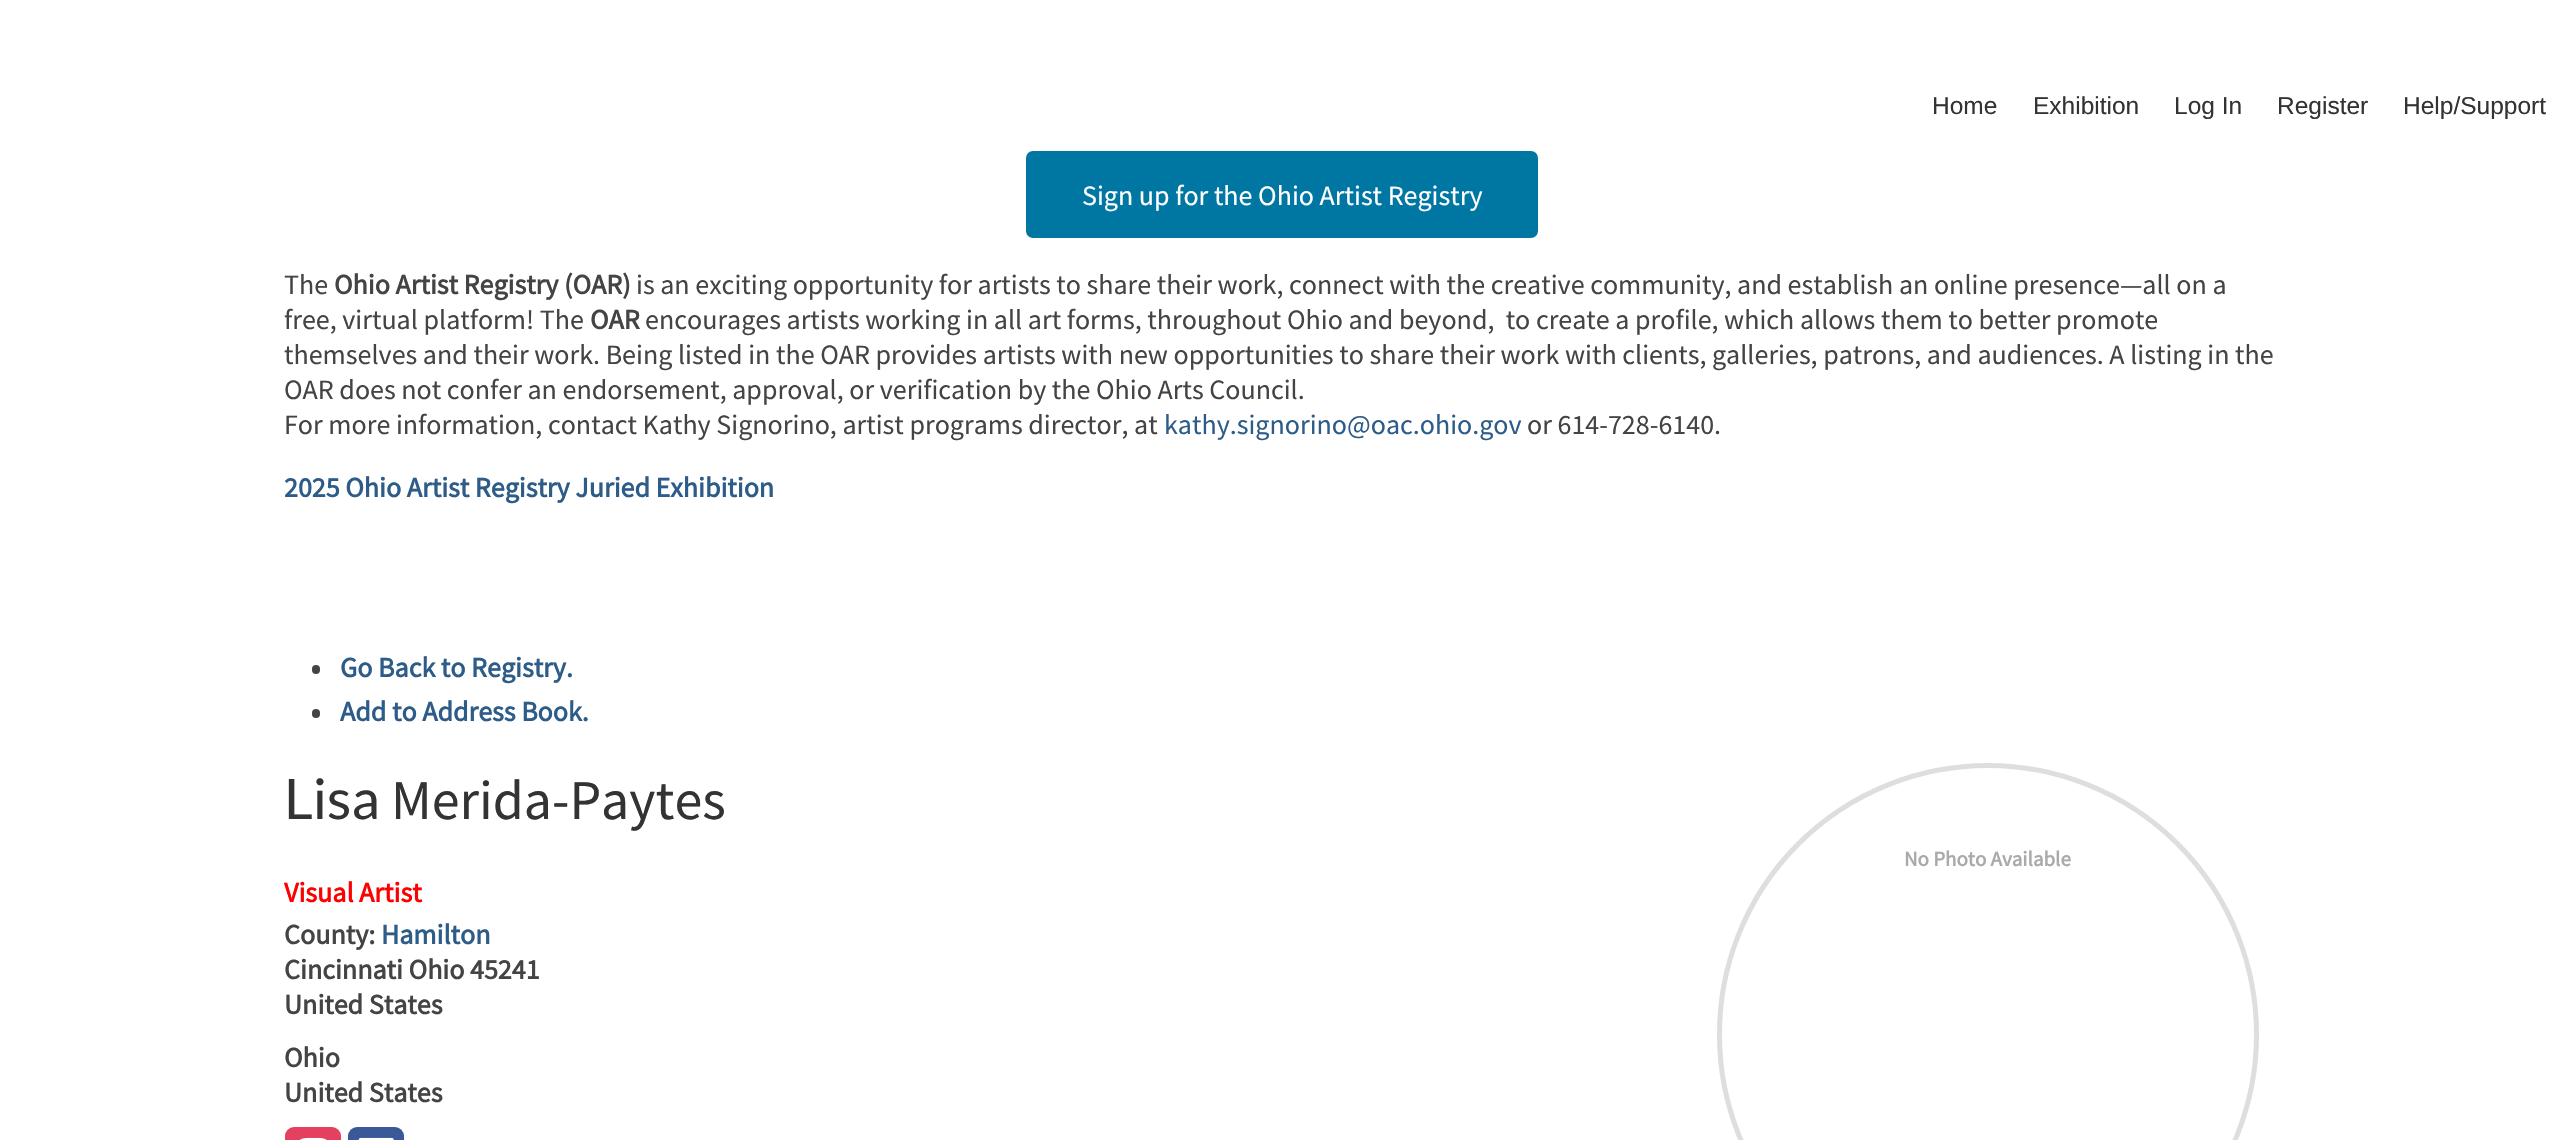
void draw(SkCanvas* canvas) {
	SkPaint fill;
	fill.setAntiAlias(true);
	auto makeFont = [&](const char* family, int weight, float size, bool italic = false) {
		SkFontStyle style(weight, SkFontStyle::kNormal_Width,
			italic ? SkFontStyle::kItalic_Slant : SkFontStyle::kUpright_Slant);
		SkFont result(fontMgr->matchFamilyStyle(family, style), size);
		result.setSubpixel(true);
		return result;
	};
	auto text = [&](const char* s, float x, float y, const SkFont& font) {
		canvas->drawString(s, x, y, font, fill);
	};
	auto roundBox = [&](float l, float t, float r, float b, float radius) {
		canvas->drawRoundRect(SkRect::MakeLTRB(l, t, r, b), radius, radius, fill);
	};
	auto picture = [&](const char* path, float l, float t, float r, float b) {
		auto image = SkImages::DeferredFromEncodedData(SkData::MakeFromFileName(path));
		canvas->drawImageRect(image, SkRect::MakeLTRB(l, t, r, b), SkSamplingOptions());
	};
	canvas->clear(0xFFFFFFFF);
	fill.setColor(0xFF0076A3);
	roundBox(1026, 151, 1538, 238, 7);
	fill.setColor(0xFF444444);
	roundBox(312, 665, 320, 674, 4);
	roundBox(312, 709, 320, 718, 4);
	fill.setColor(0xFFE4405F);
	roundBox(285, 1127, 341, 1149, 9);
	picture("image0.png", 299, 1137, 327, 1140);
	fill.setColor(0xFF3B5998);
	roundBox(348, 1127, 404, 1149, 9);
	picture("image1.png", 358, 1137, 394, 1140);
	fill.setStyle(SkPaint::kStroke_Style);
	fill.setStrokeWidth(5);
	fill.setColor(0xFFDEDEDC);
	canvas->drawRoundRect(SkRect::MakeLTRB(1719.5f, 765.5f, 2256.5f, 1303.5f), 268.5f, 268.5f, fill);
	auto font1 = makeFont("Liberation Sans", 400, 24.5f);
	fill.setStyle(SkPaint::kFill_Style);
	fill.setColor(0xFF333333);
	text("Home", 1932, 114, font1);
	text("Exhibition", 2033, 114, font1);
	text("Log In", 2174, 114, font1);
	text("Register", 2277, 114, font1);
	text("Help/Support", 2403, 114, font1);
	auto font2 = makeFont("Source Sans Pro", 400, 28);
	fill.setColor(0xFFFFFFFF);
	text("Sign up for the Ohio Artist Registry", 1082, 205, font2);
	fill.setColor(0xFF444444);
	text("The", 284, 294, font2);
	auto font3 = makeFont("Source Sans Pro", 700, 28);
	text("Ohio Artist Registry (OAR)", 334, 294, font3);
	text("is an exciting opportunity for artists to share their work, connect with the creative community, and establish an online presence—all on a", 636, 294, font2);
	text("free, virtual platform! The", 284, 329, font2);
	text("OAR", 590, 329, font3);
	text("encourages artists working in all art forms, throughout Ohio and beyond,  to create a profile, which allows them to better promote", 645, 329, font2);
	text("themselves and their work. Being listed in the OAR provides artists with new opportunities to share their work with clients, galleries, patrons, and audiences. A listing in the", 284, 364, font2);
	text("OAR does not confer an endorsement, approval, or verification by the Ohio Arts Council.", 284, 399, font2);
	text("For more information, contact Kathy Signorino, artist programs director, at", 284, 434, font2);
	fill.setColor(0xFF2D5C88);
	text("kathy.signorino@oac.ohio.gov", 1164, 434, font2);
	fill.setColor(0xFF444444);
	text("or 614-728-6140.", 1527, 434, font2);
	fill.setColor(0xFF2D5C88);
	text("2025 Ohio Artist Registry Juried Exhibition", 284, 497, font3);
	text("Go Back to Registry.", 340, 677, font3);
	text("Add to Address Book.", 340, 721, font3);
	auto font4 = makeFont("Lato", 400, 56);
	fill.setColor(0xFF333333);
	text("Lisa", 284, 819, font4);
	auto font5 = makeFont("Source Sans Pro", 400, 56);
	text("Merida-Paytes", 391, 819, font5);
	fill.setColor(0xFFFF0000);
	text("Visual Artist", 284, 902, font3);
	fill.setColor(0xFF444444);
	text("County:", 284, 944, font3);
	fill.setColor(0xFF2D5C88);
	text("Hamilton", 381, 944, font3);
	fill.setColor(0xFF444444);
	text("Cincinnati Ohio 45241", 284, 979, font3);
	text("United States", 284, 1014, font3);
	text("Ohio", 284, 1067, font3);
	text("United States", 284, 1102, font3);
	auto font6 = makeFont("Source Sans Pro", 700, 21);
	fill.setColor(0xFFAAAAAA);
	text("No Photo Available", 1904, 866, font6);
}
